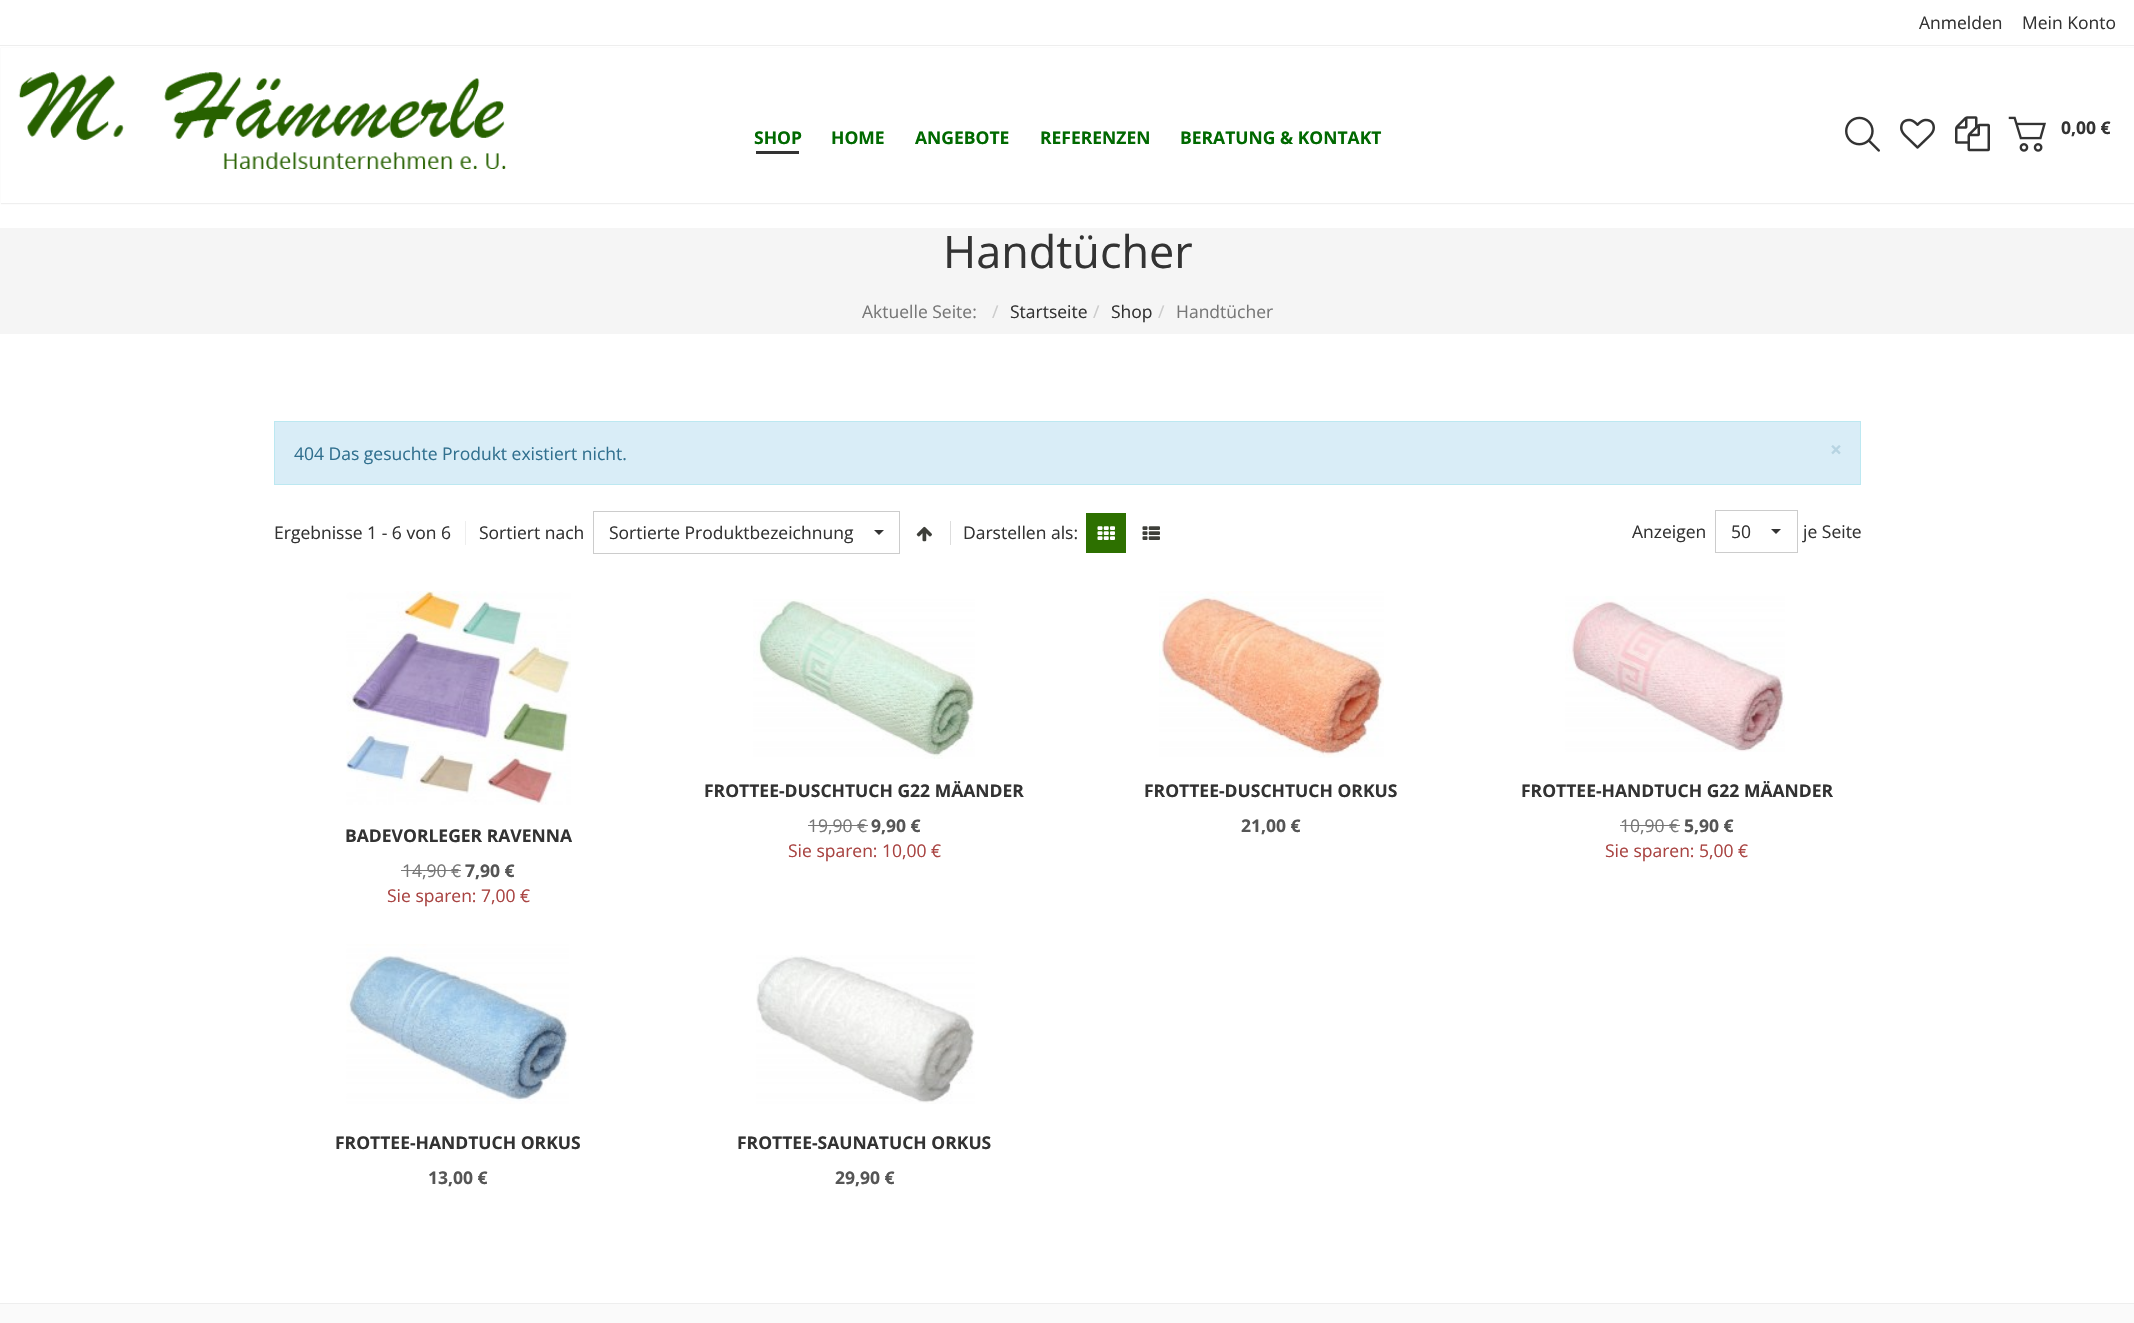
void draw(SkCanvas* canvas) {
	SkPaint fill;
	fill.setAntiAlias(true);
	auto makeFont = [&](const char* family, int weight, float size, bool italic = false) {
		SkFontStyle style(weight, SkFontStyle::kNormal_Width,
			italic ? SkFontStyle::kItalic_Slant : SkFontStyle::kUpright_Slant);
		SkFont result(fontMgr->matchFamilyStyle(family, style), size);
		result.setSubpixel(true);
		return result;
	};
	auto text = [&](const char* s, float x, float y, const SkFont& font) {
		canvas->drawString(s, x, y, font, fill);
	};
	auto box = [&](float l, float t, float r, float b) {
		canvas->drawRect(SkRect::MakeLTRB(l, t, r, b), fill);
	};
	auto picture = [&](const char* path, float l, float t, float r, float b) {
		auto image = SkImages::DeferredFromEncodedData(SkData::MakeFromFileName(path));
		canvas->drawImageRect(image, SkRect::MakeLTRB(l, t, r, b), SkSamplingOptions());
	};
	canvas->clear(0xFFFFFFFF);
	fill.setColor(0xFFEEEEEE);
	box(0, 45, 2134, 46);
	fill.setColor(0xFFEFEFEF);
	fill.setMaskFilter(SkMaskFilter::MakeBlur(kNormal_SkBlurStyle, 0.5f));
	canvas->drawRect(SkRect::MakeLTRB(1, 48, 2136, 204), fill);
	fill.setMaskFilter(nullptr);
	fill.setColor(0xFFFFFFFF);
	box(1, 48, 2134, 203);
	picture("image0.png", 18, 72, 506, 169);
	fill.setColor(0xFF333333);
	box(756, 151, 799, 154);
	picture("image1.png", 1845, 116, 1880, 152);
	picture("image2.png", 1900, 118, 1935, 149);
	picture("image3.png", 1955, 116, 1990, 152);
	picture("image4.png", 2008, 116, 2046, 152);
	fill.setColor(0xFFF5F5F5);
	box(0, 228, 2134, 334);
	fill.setColor(0xFFD9EDF7);
	canvas->drawRect(SkRect::MakeLTRB(274.5f, 421.5f, 1860.5f, 484.5f), fill);
	fill.setStyle(SkPaint::kStroke_Style);
	fill.setStrokeWidth(1);
	fill.setColor(0xFFBCE8F1);
	canvas->drawRect(SkRect::MakeLTRB(274.5f, 421.5f, 1860.5f, 484.5f), fill);
	fill.setStyle(SkPaint::kFill_Style);
	fill.setColor(0xFFEEEEEE);
	box(465, 521, 466, 545);
	fill.setStyle(SkPaint::kStroke_Style);
	fill.setColor(0xFFCCCCCC);
	canvas->drawRect(SkRect::MakeLTRB(593.5f, 511.5f, 899.5f, 553.5f), fill);
	fill.setStyle(SkPaint::kFill_Style);
	fill.setColor(0xFF333333);
	canvas->drawPath(SkPathBuilder().moveTo(874, 530).lineTo(884, 530).lineTo(879, 535).close().detach(), fill);
	picture("image5.png", 916, 526, 932, 542);
	fill.setColor(0xFFDDDDDD);
	box(950, 521, 951, 545);
	fill.setColor(0xFF2D7000);
	box(1086, 513, 1126, 553);
	picture("image6.png", 1097, 526, 1115, 540);
	picture("image7.png", 1142, 526, 1160, 540);
	fill.setStyle(SkPaint::kStroke_Style);
	fill.setColor(0xFFCCCCCC);
	canvas->drawRect(SkRect::MakeLTRB(1715.5f, 510.5f, 1797.5f, 552.5f), fill);
	fill.setStyle(SkPaint::kFill_Style);
	fill.setColor(0xFF333333);
	canvas->drawPath(SkPathBuilder().moveTo(1771, 529).lineTo(1781, 529).lineTo(1776, 534).close().detach(), fill);
	picture("image8.png", 753, 599, 975, 759);
	fill.setColor(0xFF777777);
	box(808, 825, 868, 826);
	picture("image9.png", 1159, 591, 1384, 758);
	picture("image10.png", 1565, 596, 1785, 752);
	box(1620, 825, 1680, 826);
	picture("image11.png", 346, 591, 571, 805);
	box(401, 870, 461, 871);
	picture("image12.png", 346, 944, 569, 1104);
	picture("image13.png", 756, 955, 975, 1104);
	fill.setColor(0xFFFAFAFA);
	box(0, 1304, 2134, 1323);
	fill.setColor(0xFFEEEEEE);
	box(0, 1303, 2134, 1304);
	auto font1 = makeFont("Open Sans", 400, 17.5f);
	fill.setColor(0xFF333333);
	text("Anmelden", 1919, 29, font1);
	text("Mein Konto", 2022, 29, font1);
	auto font2 = makeFont("Open Sans", 700, 17.5f);
	fill.setColor(0xFF006900);
	text("SHOP", 754, 144, font2);
	text("HOME", 831, 144, font2);
	text("ANGEBOTE", 915, 144, font2);
	text("REFERENZEN", 1040, 144, font2);
	text("BERATUNG & KONTAKT", 1180, 144, font2);
	fill.setColor(0xFF333333);
	text("0,00 €", 2061, 134, font2);
	auto font3 = makeFont("Open Sans", 400, 45);
	text("Handtücher", 943, 268, font3);
	fill.setColor(0xFF777777);
	text("Aktuelle Seite:", 862, 318, font1);
	fill.setColor(0xFFCCCCCC);
	text("/", 992, 318, font1);
	fill.setColor(0xFF333333);
	text("Startseite", 1010, 318, font1);
	fill.setColor(0xFFCCCCCC);
	text("/", 1093, 318, font1);
	fill.setColor(0xFF333333);
	text("Shop", 1111, 318, font1);
	fill.setColor(0xFFCCCCCC);
	text("/", 1158, 318, font1);
	fill.setColor(0xFF777777);
	text("Handtücher", 1176, 318, font1);
	fill.setColor(0xFF31708F);
	text("404 Das gesuchte Produkt existiert nicht.", 294, 460, font1);
	auto font4 = makeFont("Open Sans", 700, 21);
	fill.setColor(0xFFB7D4E2);
	text("×", 1830, 457, font4);
	fill.setColor(0xFF333333);
	text("Ergebnisse 1 - 6 von 6", 274, 539, font1);
	text("Sortiert nach", 479, 539, font1);
	text("Sortierte Produktbezeichnung", 609, 539, font1);
	text("Darstellen als:", 963, 539, font1);
	text("Anzeigen", 1632, 538, font1);
	text("50", 1731, 538, font1);
	text("je Seite", 1803, 538, font1);
	text("FROTTEE-DUSCHTUCH G22 MÄANDER", 704, 797, font2);
	fill.setColor(0xFF777777);
	text("19,90 €", 808, 832, font1);
	fill.setColor(0xFF555555);
	text("9,90 €", 871, 832, font2);
	fill.setColor(0xFFA94442);
	text("Sie sparen: 10,00 €", 788, 857, font1);
	fill.setColor(0xFF333333);
	text("FROTTEE-DUSCHTUCH ORKUS", 1144, 797, font2);
	fill.setColor(0xFF555555);
	text("21,00 €", 1241, 832, font2);
	fill.setColor(0xFF333333);
	text("FROTTEE-HANDTUCH G22 MÄANDER", 1521, 797, font2);
	fill.setColor(0xFF777777);
	text("10,90 €", 1620, 832, font1);
	fill.setColor(0xFF555555);
	text("5,90 €", 1684, 832, font2);
	fill.setColor(0xFFA94442);
	text("Sie sparen: 5,00 €", 1605, 857, font1);
	fill.setColor(0xFF333333);
	text("BADEVORLEGER RAVENNA", 345, 842, font2);
	fill.setColor(0xFF777777);
	text("14,90 €", 402, 877, font1);
	fill.setColor(0xFF555555);
	text("7,90 €", 465, 877, font2);
	fill.setColor(0xFFA94442);
	text("Sie sparen: 7,00 €", 387, 902, font1);
	fill.setColor(0xFF333333);
	text("FROTTEE-HANDTUCH ORKUS", 335, 1149, font2);
	fill.setColor(0xFF555555);
	text("13,00 €", 428, 1184, font2);
	fill.setColor(0xFF333333);
	text("FROTTEE-SAUNATUCH ORKUS", 737, 1149, font2);
	fill.setColor(0xFF555555);
	text("29,90 €", 835, 1184, font2);
}
